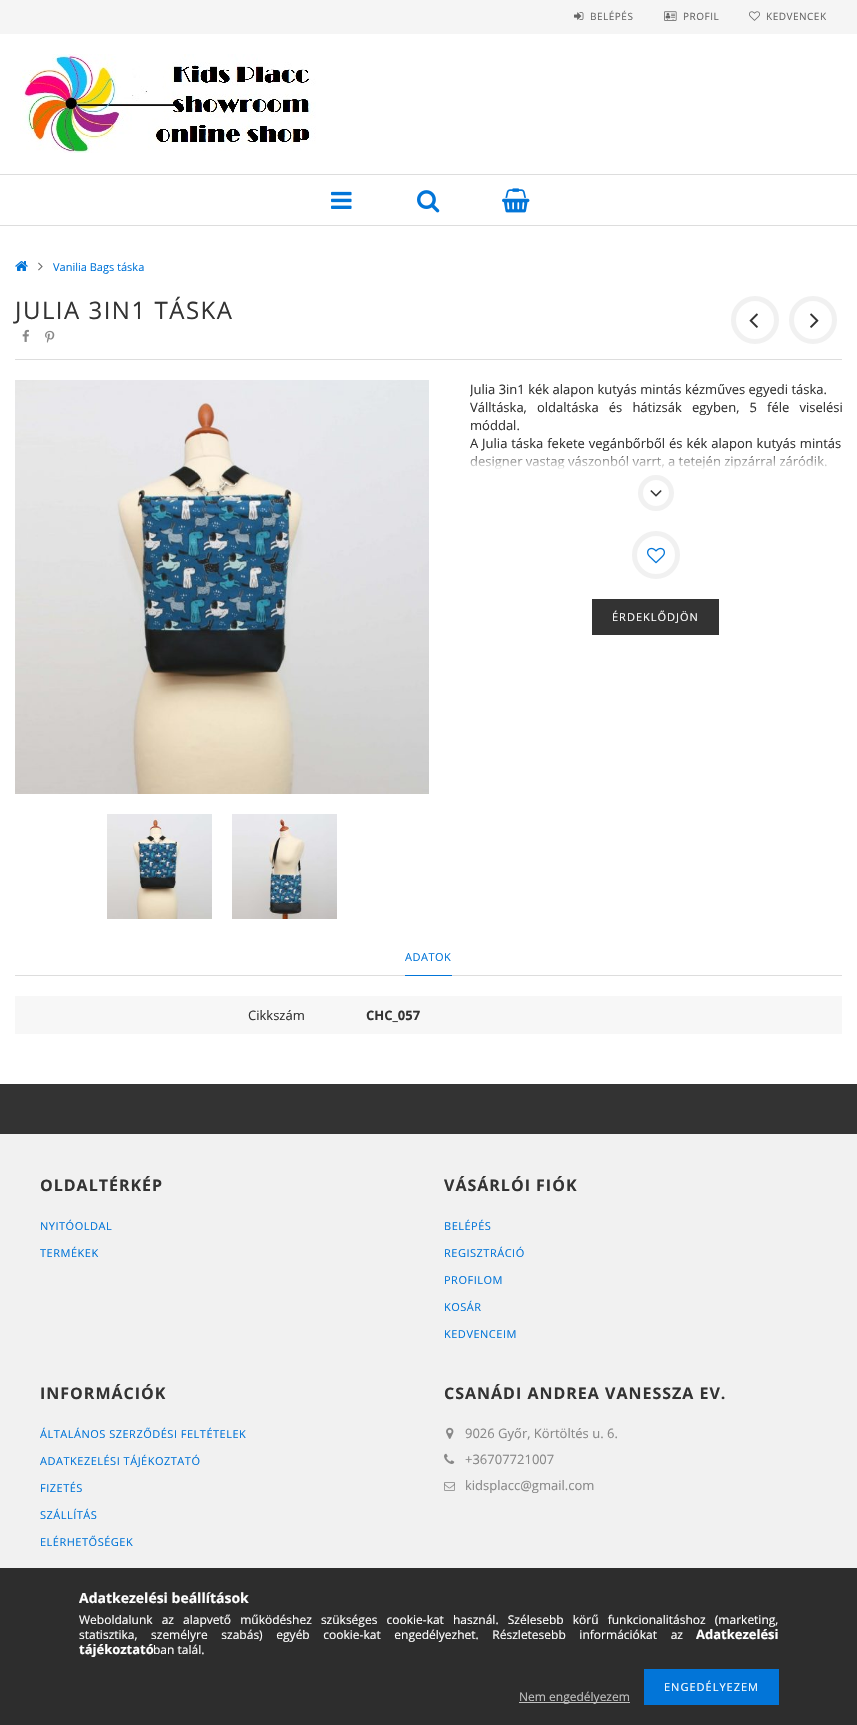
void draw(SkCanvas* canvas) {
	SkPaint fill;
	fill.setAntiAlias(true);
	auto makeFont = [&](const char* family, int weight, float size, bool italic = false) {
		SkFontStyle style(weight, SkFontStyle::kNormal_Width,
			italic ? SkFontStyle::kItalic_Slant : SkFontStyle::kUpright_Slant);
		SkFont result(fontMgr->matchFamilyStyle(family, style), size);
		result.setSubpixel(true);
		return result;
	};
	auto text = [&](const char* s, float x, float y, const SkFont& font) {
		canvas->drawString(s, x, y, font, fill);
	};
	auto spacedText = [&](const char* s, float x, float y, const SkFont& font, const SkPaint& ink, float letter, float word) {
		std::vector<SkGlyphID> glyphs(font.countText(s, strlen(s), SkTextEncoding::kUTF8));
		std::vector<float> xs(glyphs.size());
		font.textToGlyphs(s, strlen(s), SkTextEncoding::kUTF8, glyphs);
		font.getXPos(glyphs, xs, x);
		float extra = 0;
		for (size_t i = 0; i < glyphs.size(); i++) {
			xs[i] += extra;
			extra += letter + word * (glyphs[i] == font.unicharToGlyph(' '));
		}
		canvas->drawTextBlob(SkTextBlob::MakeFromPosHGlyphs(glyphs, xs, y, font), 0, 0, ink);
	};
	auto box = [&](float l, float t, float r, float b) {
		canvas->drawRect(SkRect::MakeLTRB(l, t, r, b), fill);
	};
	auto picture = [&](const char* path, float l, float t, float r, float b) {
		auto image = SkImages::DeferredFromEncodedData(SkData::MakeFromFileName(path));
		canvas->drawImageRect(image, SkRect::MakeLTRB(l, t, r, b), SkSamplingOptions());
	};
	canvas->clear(0xFFFFFFFF);
	fill.setColor(0xFFF5F5F5);
	box(0, 0, 857, 34);
	picture("image0.png", 574, 12, 584, 20);
	picture("image1.png", 664, 11, 677, 21);
	picture("image2.png", 749, 11, 760, 21);
	picture("image3.png", 20, 54, 316, 153);
	fill.setColor(0xFFDDDDDD);
	box(0, 174, 857, 175);
	box(0, 225, 857, 226);
	picture("image4.png", 331, 191, 352, 209);
	picture("image5.png", 417, 190, 440, 213);
	picture("image6.png", 502, 188, 530, 213);
	picture("image7.png", 15, 261, 28, 271);
	picture("image8.png", 38, 262, 43, 271);
	box(15, 359, 842, 360);
	picture("image9.png", 22, 329, 29, 342);
	picture("image10.png", 45, 330, 55, 343);
	fill.setStyle(SkPaint::kStroke_Style);
	fill.setStrokeWidth(5);
	fill.setColor(0xFFF1F1F1);
	canvas->drawCircle(755, 320, 21.5f, fill);
	picture("image11.png", 749, 313, 758, 328);
	canvas->drawCircle(813, 320, 21.5f, fill);
	picture("image12.png", 810, 313, 819, 328);
	picture("image13.png", 15, 380, 429, 794);
	picture("image14.png", 107, 814, 212, 919);
	picture("image15.png", 232, 814, 337, 919);
	canvas->drawCircle(656, 493, 15.5f, fill);
	picture("image16.png", 650, 490, 662, 497);
	canvas->drawCircle(656, 555, 21.5f, fill);
	picture("image17.png", 647, 547, 665, 564);
	fill.setStyle(SkPaint::kFill_Style);
	fill.setColor(0xFF333333);
	box(592, 599, 719, 635);
	fill.setColor(0xFFDDDDDD);
	box(15, 975, 842, 976);
	fill.setColor(0xFF0275D8);
	box(405, 975, 452, 976);
	fill.setColor(0xFFF7F7F7);
	box(15, 996, 842, 1034);
	fill.setColor(0xFF333333);
	box(0, 1084, 857, 1134);
	fill.setColor(0xFFF1F1F1);
	box(0, 1134, 857, 1651);
	picture("image18.png", 446, 1427, 454, 1439);
	picture("image19.png", 444, 1453, 455, 1464);
	picture("image20.png", 444, 1482, 455, 1491);
	fill.setColor(0xF2222222);
	box(0, 1568, 857, 1725);
	fill.setColor(0xFF0275D8);
	box(644, 1669, 779, 1705);
	fill.setColor(0xFFC0C0C0);
	box(519, 1702, 630, 1703);
	auto font1 = makeFont("Open Sans", 400, 10);
	fill.setColor(0xFF666666);
	spacedText("BELÉPÉS", 590, 20, font1, fill, 0.5f, 0);
	spacedText("PROFIL", 683, 20, font1, fill, 0.5f, 0);
	spacedText("KEDVENCEK", 766, 20, font1, fill, 0.5f, 0);
	auto font2 = makeFont("Open Sans", 400, 11);
	fill.setColor(0xFF0275D8);
	text("Vanilia Bags táska", 53, 271, font2);
	auto font3 = makeFont("Open Sans", 400, 24);
	fill.setColor(0xFF333333);
	spacedText("JULIA 3IN1 TÁSKA", 15, 319, font3, fill, 1.5f, 0);
	canvas->save();
	canvas->clipRect(SkRect::MakeLTRB(470, 380, 842, 470));
	auto font4 = makeFont("Open Sans", 400, 13);
	text("Julia 3in1 kék alapon kutyás mintás kézműves egyedi táska.", 470, 394, font4);
	canvas->restore();
	spacedText("Válltáska, oldaltáska és hátizsák egyben, 5 féle viselési", 470, 412, font4, fill, 0, 6.75f);
	text("móddal.", 470, 430, font4);
	spacedText("A Julia táska fekete vegánbőrből és kék alapon kutyás mintás", 470, 448, font4, fill, 0, 0.5f);
	text("designer vastag vászonból varrt, a tetején zipzárral záródik.", 470, 466, font4);
	{
		const SkColor colors[] = {0x00FFFFFF, 0xFFFFFFFF};
		const float stops[] = {0, 1};
		const SkPoint ends[] = {{656, 452}, {656, 470}};
		fill.setShader(SkGradientShader::MakeLinear(ends, colors, stops, 2, SkTileMode::kClamp));
		fill.setAlpha(255);
	}
	box(470, 456, 827, 470);
	fill.setShader(nullptr);
	fill.setColor(0xFFFFFFFF);
	spacedText("ÉRDEKLŐDJÖN", 612, 621, font2, fill, 1, 0);
	fill.setColor(0xFF0275D8);
	spacedText("ADATOK", 405, 961, font2, fill, 0.5f, 0);
	fill.setColor(0xFF333333);
	text("Cikkszám", 248, 1020, font4);
	auto font5 = makeFont("Open Sans", 700, 13);
	text("CHC_057", 366, 1020, font5);
	auto font6 = makeFont("Open Sans", 700, 16);
	spacedText("OLDALTÉRKÉP", 40, 1191, font6, fill, 1, 0);
	fill.setColor(0xFF0275D8);
	spacedText("NYITÓOLDAL", 40, 1230, font2, fill, 0.5f, 0);
	spacedText("TERMÉKEK", 40, 1257, font2, fill, 0.5f, 0);
	fill.setColor(0xFF333333);
	spacedText("VÁSÁRLÓI FIÓK", 444, 1191, font6, fill, 1, 0);
	fill.setColor(0xFF0275D8);
	spacedText("BELÉPÉS", 444, 1230, font2, fill, 0.5f, 0);
	spacedText("REGISZTRÁCIÓ", 444, 1257, font2, fill, 0.5f, 0);
	spacedText("PROFILOM", 444, 1284, font2, fill, 0.5f, 0);
	spacedText("KOSÁR", 444, 1311, font2, fill, 0.5f, 0);
	spacedText("KEDVENCEIM", 444, 1338, font2, fill, 0.5f, 0);
	fill.setColor(0xFF333333);
	spacedText("INFORMÁCIÓK", 40, 1399, font6, fill, 1, 0);
	fill.setColor(0xFF0275D8);
	spacedText("ÁLTALÁNOS SZERZŐDÉSI FELTÉTELEK", 40, 1438, font2, fill, 0.5f, 0);
	spacedText("ADATKEZELÉSI TÁJÉKOZTATÓ", 40, 1465, font2, fill, 0.5f, 0);
	spacedText("FIZETÉS", 40, 1492, font2, fill, 0.5f, 0);
	spacedText("SZÁLLÍTÁS", 40, 1519, font2, fill, 0.5f, 0);
	spacedText("ELÉRHETŐSÉGEK", 40, 1546, font2, fill, 0.5f, 0);
	fill.setColor(0xFF333333);
	spacedText("CSANÁDI ANDREA VANESSZA EV.", 444, 1399, font6, fill, 1, 0);
	fill.setColor(0xFF888888);
	text("9026 Győr, Körtöltés u. 6.", 465, 1438, font4);
	text("+36707721007", 465, 1464, font4);
	text("kidsplacc@gmail.com", 465, 1490, font4);
	auto font7 = makeFont("Open Sans", 700, 14);
	fill.setColor(0xFFFFFFFF);
	text("Adatkezelési beállítások", 79, 1603, font7);
	auto font8 = makeFont("Open Sans", 400, 12);
	spacedText("Weboldalunk az alapvető működéshez szükséges cookie-kat használ. Szélesebb körű funkcionalitáshoz (marketing,", 79, 1624, font8, fill, 0, 6);
	spacedText("statisztika, személyre szabás) egyéb cookie-kat engedélyezhet. Részletesebb információkat az", 79, 1639, font8, fill, 0, 10.5f);
	text("Adatkezelési", 696, 1639, font5);
	text("tájékoztató", 79, 1654, font5);
	text("ban talál.", 153, 1654, font8);
	spacedText("ENGEDÉLYEZEM", 664, 1691, font2, fill, 1, 0);
	fill.setColor(0xFFC0C0C0);
	text("Nem engedélyezem", 519, 1701, font8);
}
